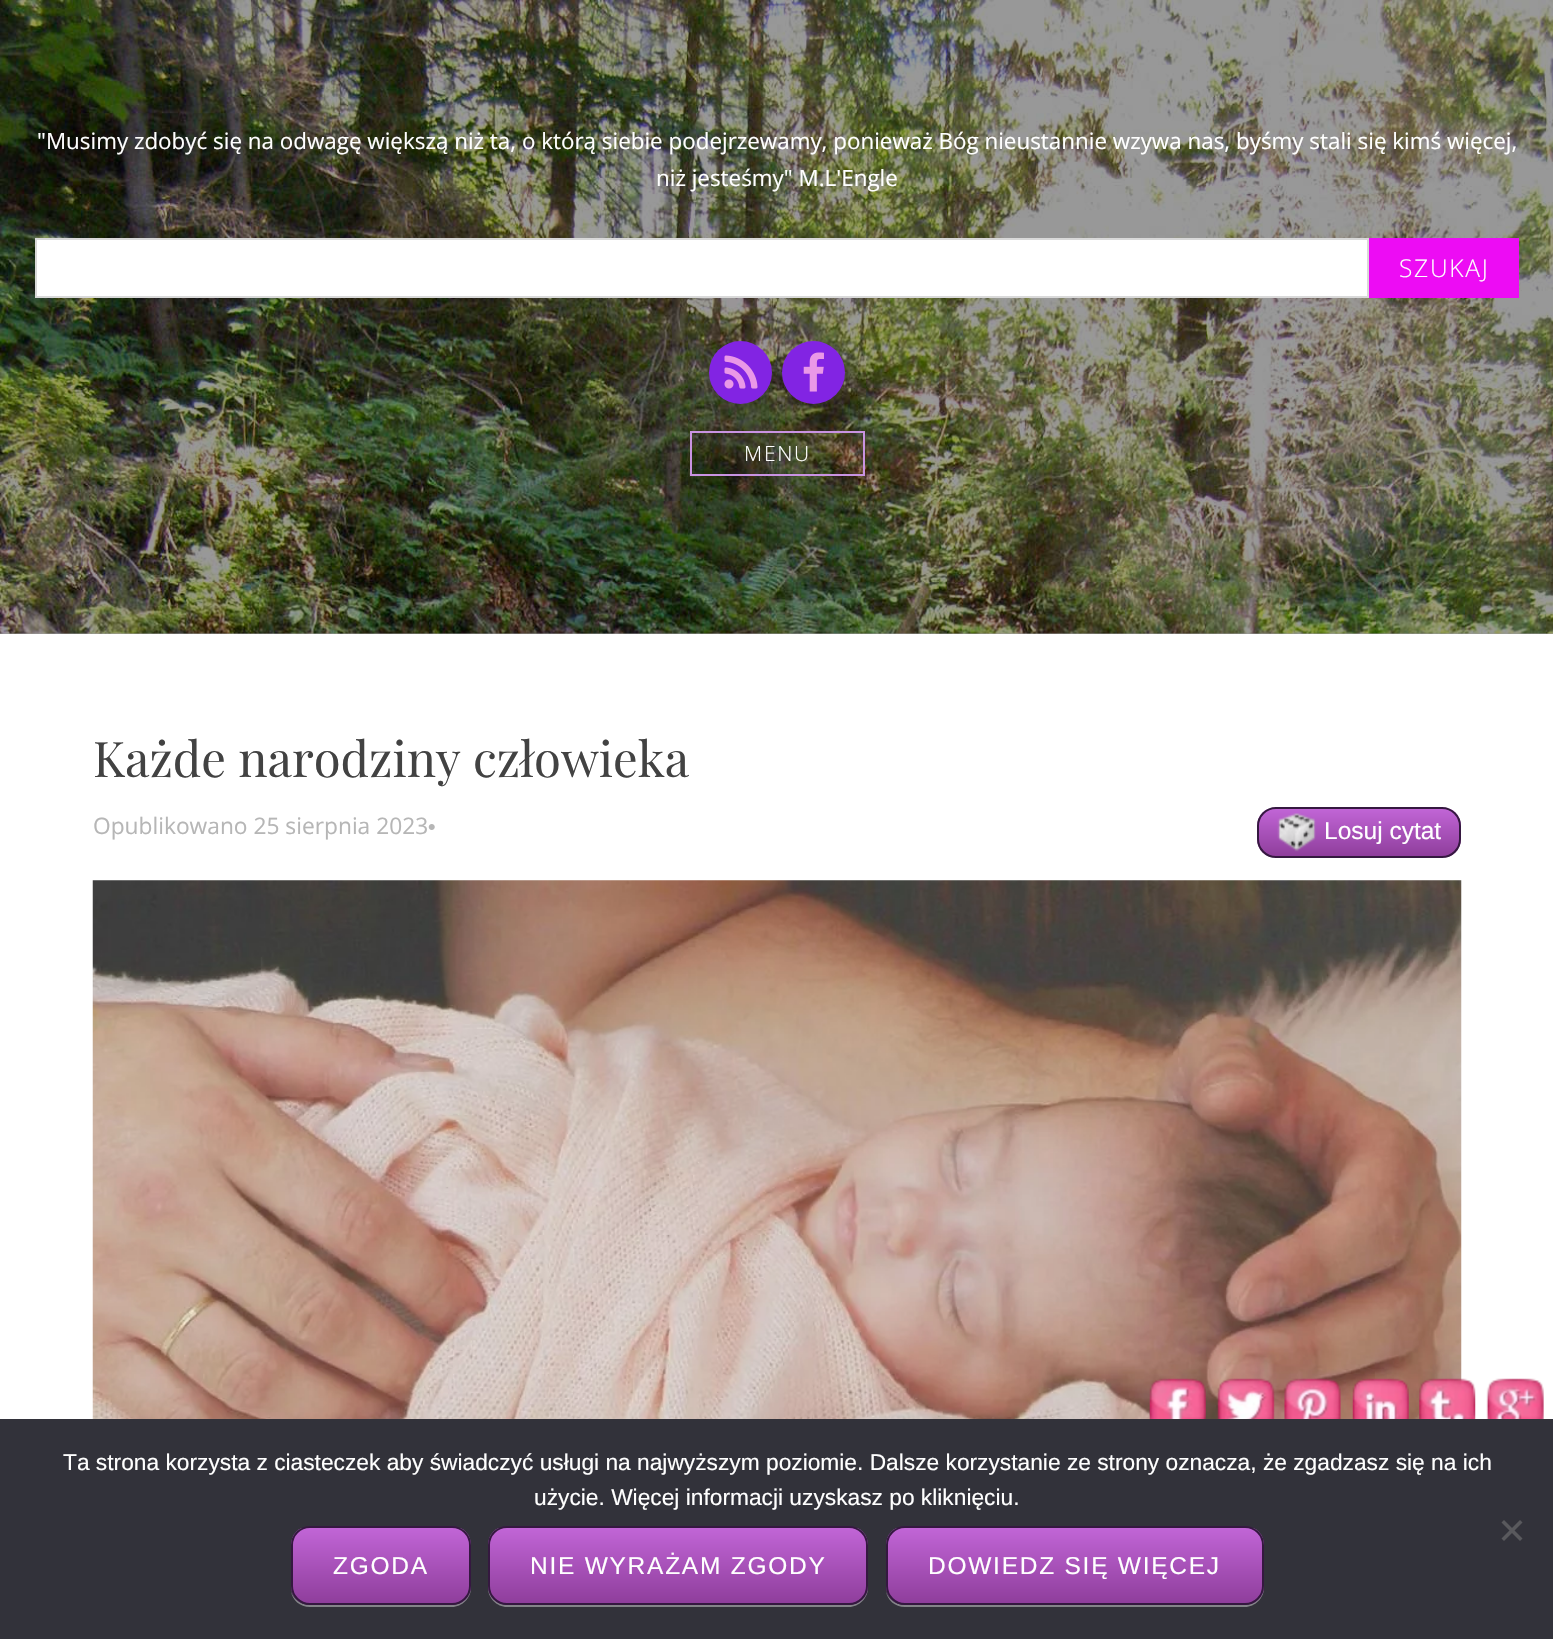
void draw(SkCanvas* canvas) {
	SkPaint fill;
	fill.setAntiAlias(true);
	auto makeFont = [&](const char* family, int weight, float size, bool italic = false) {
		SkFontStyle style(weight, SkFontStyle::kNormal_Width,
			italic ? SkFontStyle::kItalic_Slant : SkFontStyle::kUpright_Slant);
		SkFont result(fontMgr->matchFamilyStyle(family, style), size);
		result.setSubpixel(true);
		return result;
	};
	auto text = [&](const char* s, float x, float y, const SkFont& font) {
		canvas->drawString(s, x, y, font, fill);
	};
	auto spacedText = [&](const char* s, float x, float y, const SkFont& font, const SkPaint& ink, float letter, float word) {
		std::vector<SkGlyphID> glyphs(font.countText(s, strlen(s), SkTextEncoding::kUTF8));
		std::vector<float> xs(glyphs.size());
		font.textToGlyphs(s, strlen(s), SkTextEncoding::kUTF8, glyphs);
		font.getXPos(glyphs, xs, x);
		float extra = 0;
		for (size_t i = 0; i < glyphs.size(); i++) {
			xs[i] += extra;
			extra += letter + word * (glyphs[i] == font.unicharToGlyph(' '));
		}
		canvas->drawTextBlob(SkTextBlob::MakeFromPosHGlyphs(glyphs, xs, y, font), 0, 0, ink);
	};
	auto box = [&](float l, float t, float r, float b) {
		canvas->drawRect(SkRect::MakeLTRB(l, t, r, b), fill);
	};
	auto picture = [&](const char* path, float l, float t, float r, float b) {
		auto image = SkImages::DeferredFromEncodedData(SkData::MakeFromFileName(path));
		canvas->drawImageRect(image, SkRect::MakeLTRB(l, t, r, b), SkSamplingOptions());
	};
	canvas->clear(0xFFFFFFFF);
	fill.setColor(0xFF999999);
	box(0, 633, 1553, 634);
	picture("image0.png", 0, 0, 1553, 634);
	fill.setColor(0xFFFFFFFF);
	canvas->drawRect(SkRect::MakeLTRB(36, 239, 1368, 297), fill);
	fill.setStyle(SkPaint::kStroke_Style);
	fill.setStrokeWidth(2);
	fill.setColor(0xFFD9D9D9);
	canvas->drawRect(SkRect::MakeLTRB(36, 239, 1368, 297), fill);
	fill.setStyle(SkPaint::kFill_Style);
	fill.setColor(0xFFED0CF4);
	box(1369, 238, 1519, 298);
	fill.setColor(0xFF8224E3);
	canvas->drawCircle(740.5f, 372.5f, 31.5f, fill);
	picture("image1.png", 724, 355, 758, 389);
	canvas->drawCircle(813.5f, 372.5f, 31.5f, fill);
	picture("image2.png", 803, 352, 824, 392);
	fill.setStyle(SkPaint::kStroke_Style);
	fill.setColor(0xFFC993E2);
	canvas->drawRect(SkRect::MakeLTRB(691, 432, 864, 475), fill);
	picture("image3.png", 428, 824, 435, 830);
	canvas->save();
	canvas->clipPath(SkPathBuilder().moveTo(1276, 807).lineTo(1442, 807).cubicTo(1452.5f, 807, 1461, 815.5f, 1461, 826).lineTo(1461, 839).cubicTo(1461, 849.5f, 1452.5f, 858, 1442, 858).lineTo(1276, 858).cubicTo(1265.5f, 858, 1257, 849.5f, 1257, 839).lineTo(1257, 826).cubicTo(1257, 815.5f, 1265.5f, 807, 1276, 807).close().detach(), true);
	fill.setStyle(SkPaint::kFill_Style);
	{
		const SkColor colors[] = {0xFFC165D6, 0xFF8F3E9C};
		const float stops[] = {0, 1};
		const SkPoint ends[] = {{1359, 809}, {1359, 856}};
		fill.setShader(SkGradientShader::MakeLinear(ends, colors, stops, 2, SkTileMode::kClamp));
		fill.setAlpha(255);
	}
	box(1257, 809, 1461, 856);
	canvas->restore();
	fill.setStyle(SkPaint::kStroke_Style);
	fill.setShader(nullptr);
	fill.setColor(0xFF351840);
	canvas->drawRoundRect(SkRect::MakeLTRB(1258, 808, 1460, 857), 18, 18, fill);
	picture("image4.png", 1277, 813, 1316, 852);
	picture("image5.png", 92, 880, 1462, 1419);
	picture("image6.png", 1149, 1378, 1206, 1419);
	picture("image7.png", 1217, 1378, 1275, 1419);
	picture("image8.png", 1284, 1378, 1341, 1419);
	picture("image9.png", 1352, 1378, 1409, 1419);
	picture("image10.png", 1419, 1378, 1476, 1419);
	picture("image11.png", 1486, 1378, 1544, 1419);
	fill.setStyle(SkPaint::kFill_Style);
	fill.setColor(0xFF32323A);
	box(0, 1419, 1553, 1639);
	fill.setColor(0xFF59595D);
	canvas->drawPath(SkPathBuilder().moveTo(1520, 1520).lineTo(1522.5f, 1522.5f).lineTo(1504, 1541).lineTo(1501.5f, 1538.5f).close().detach(), fill);
	canvas->drawPath(SkPathBuilder().moveTo(1501.5f, 1522.5f).lineTo(1504, 1520).lineTo(1522.5f, 1538.5f).lineTo(1520, 1541).close().detach(), fill);
	fill.setColor(0xFF848489);
	canvas->drawPath(SkPathBuilder().moveTo(291, 1591).cubicTo(292, 1600, 300, 1607, 310, 1607).lineTo(452, 1607).cubicTo(462, 1607, 471, 1598, 471, 1588).lineTo(471, 1543).lineTo(471, 1586).cubicTo(471, 1596, 462, 1605, 452, 1605).lineTo(310, 1605).cubicTo(301, 1605, 293, 1599, 291, 1591).close().detach(), fill);
	canvas->save();
	canvas->clipPath(SkPathBuilder().moveTo(310, 1526).lineTo(452, 1526).cubicTo(462.5f, 1526, 471, 1534.5f, 471, 1545).lineTo(471, 1586).cubicTo(471, 1596.5f, 462.5f, 1605, 452, 1605).lineTo(310, 1605).cubicTo(299.5f, 1605, 291, 1596.5f, 291, 1586).lineTo(291, 1545).cubicTo(291, 1534.5f, 299.5f, 1526, 310, 1526).close().detach(), true);
	{
		const SkColor colors[] = {0xFFC165D6, 0xFF8F3E9C};
		const float stops[] = {0, 1};
		const SkPoint ends[] = {{381, 1528}, {381, 1603}};
		fill.setShader(SkGradientShader::MakeLinear(ends, colors, stops, 2, SkTileMode::kClamp));
		fill.setAlpha(255);
	}
	box(291, 1528, 471, 1603);
	canvas->restore();
	fill.setStyle(SkPaint::kStroke_Style);
	fill.setShader(nullptr);
	fill.setColor(0xFF351840);
	canvas->drawRoundRect(SkRect::MakeLTRB(292, 1527, 470, 1604), 18, 18, fill);
	fill.setStyle(SkPaint::kFill_Style);
	fill.setColor(0xFF848489);
	canvas->drawPath(SkPathBuilder().moveTo(488, 1543).lineTo(488, 1588).cubicTo(488, 1598, 497, 1607, 507, 1607).lineTo(849, 1607).cubicTo(859, 1607, 868, 1598, 868, 1588).lineTo(868, 1586).cubicTo(868, 1596, 859, 1605, 849, 1605).lineTo(508, 1605).cubicTo(497, 1605, 488, 1596, 488, 1586).close().detach(), fill);
	canvas->save();
	canvas->clipPath(SkPathBuilder().moveTo(507, 1526).lineTo(849, 1526).cubicTo(859.5f, 1526, 868, 1534.5f, 868, 1545).lineTo(868, 1586).cubicTo(868, 1596.5f, 859.5f, 1605, 849, 1605).lineTo(507, 1605).cubicTo(496.5f, 1605, 488, 1596.5f, 488, 1586).lineTo(488, 1545).cubicTo(488, 1534.5f, 496.5f, 1526, 507, 1526).close().detach(), true);
	{
		const SkColor colors[] = {0xFFC165D6, 0xFF8F3E9C};
		const float stops[] = {0, 1};
		const SkPoint ends[] = {{678, 1528}, {678, 1603}};
		fill.setShader(SkGradientShader::MakeLinear(ends, colors, stops, 2, SkTileMode::kClamp));
		fill.setAlpha(255);
	}
	box(488, 1528, 868, 1603);
	canvas->restore();
	fill.setStyle(SkPaint::kStroke_Style);
	fill.setShader(nullptr);
	fill.setColor(0xFF351840);
	canvas->drawRoundRect(SkRect::MakeLTRB(489, 1527, 867, 1604), 18, 18, fill);
	fill.setStyle(SkPaint::kFill_Style);
	fill.setColor(0xFF848489);
	canvas->drawPath(SkPathBuilder().moveTo(886, 1591).cubicTo(887, 1600, 895, 1607, 905, 1607).lineTo(1245, 1607).cubicTo(1255, 1607, 1264, 1598, 1264, 1588).lineTo(1264, 1547).lineTo(1263, 1541).lineTo(1264, 1545).lineTo(1264, 1586).cubicTo(1264, 1596, 1255, 1605, 1244, 1605).lineTo(905, 1605).cubicTo(896, 1605, 888, 1599, 886, 1591).close().detach(), fill);
	canvas->save();
	canvas->clipPath(SkPathBuilder().moveTo(905, 1526).lineTo(1245, 1526).cubicTo(1255.5f, 1526, 1264, 1534.5f, 1264, 1545).lineTo(1264, 1586).cubicTo(1264, 1596.5f, 1255.5f, 1605, 1245, 1605).lineTo(905, 1605).cubicTo(894.5f, 1605, 886, 1596.5f, 886, 1586).lineTo(886, 1545).cubicTo(886, 1534.5f, 894.5f, 1526, 905, 1526).close().detach(), true);
	{
		const SkColor colors[] = {0xFFC165D6, 0xFF8F3E9C};
		const float stops[] = {0, 1};
		const SkPoint ends[] = {{1075, 1528}, {1075, 1603}};
		fill.setShader(SkGradientShader::MakeLinear(ends, colors, stops, 2, SkTileMode::kClamp));
		fill.setAlpha(255);
	}
	box(886, 1528, 1264, 1603);
	canvas->restore();
	fill.setStyle(SkPaint::kStroke_Style);
	fill.setShader(nullptr);
	fill.setColor(0xFF351840);
	canvas->drawRoundRect(SkRect::MakeLTRB(887, 1527, 1263, 1604), 18, 18, fill);
	auto font1 = makeFont("Open Sans", 400, 22.4f);
	fill.setStyle(SkPaint::kFill_Style);
	fill.setColor(0xFFFFFFFF);
	text("\"Musimy zdobyć się na odwagę większą niż ta, o którą siebie podejrzewamy, ponieważ Bóg nieustannie wzywa nas, byśmy stali się kimś więcej,", 37, 149, font1);
	text("niż jesteśmy\" M.L'Engle", 656, 186, font1);
	auto font2 = makeFont("Open Sans", 300, 24.5f);
	spacedText("SZUKAJ", 1399, 277, font2, fill, 1.75f, 0);
	auto font3 = makeFont("Open Sans", 300, 21);
	spacedText("MENU", 744, 461, font3, fill, 1.75f, 0);
	auto font4 = makeFont("Playfair Display", 400, 49);
	fill.setColor(0xFF424242);
	text("Każde narodziny człowieka", 93, 777, font4);
	auto font5 = makeFont("Open Sans", 400, 22.75f);
	fill.setColor(0xFFB6B6B6);
	text("Opublikowano 25 sierpnia 2023", 93, 834, font5);
	auto font6 = makeFont("Liberation Sans", 400, 24.5f);
	fill.setColor(0xFFFFFFFF);
	text("Losuj cytat", 1324, 839, font6);
	auto font7 = makeFont("Liberation Sans", 400, 22.75f);
	text("Ta strona korzysta z ciasteczek aby świadczyć usługi na najwyższym poziomie. Dalsze korzystanie ze strony oznacza, że zgadzasz się na ich", 63, 1470, font7);
	text("użycie. Więcej informacji uzyskasz po kliknięciu.", 534, 1505, font7);
	spacedText("ZGODA", 333, 1574, font6, fill, 1.75f, 0);
	spacedText("NIE WYRAŻAM ZGODY", 530, 1574, font6, fill, 1.75f, 0);
	spacedText("DOWIEDZ SIĘ WIĘCEJ", 928, 1574, font6, fill, 1.75f, 0);
}
